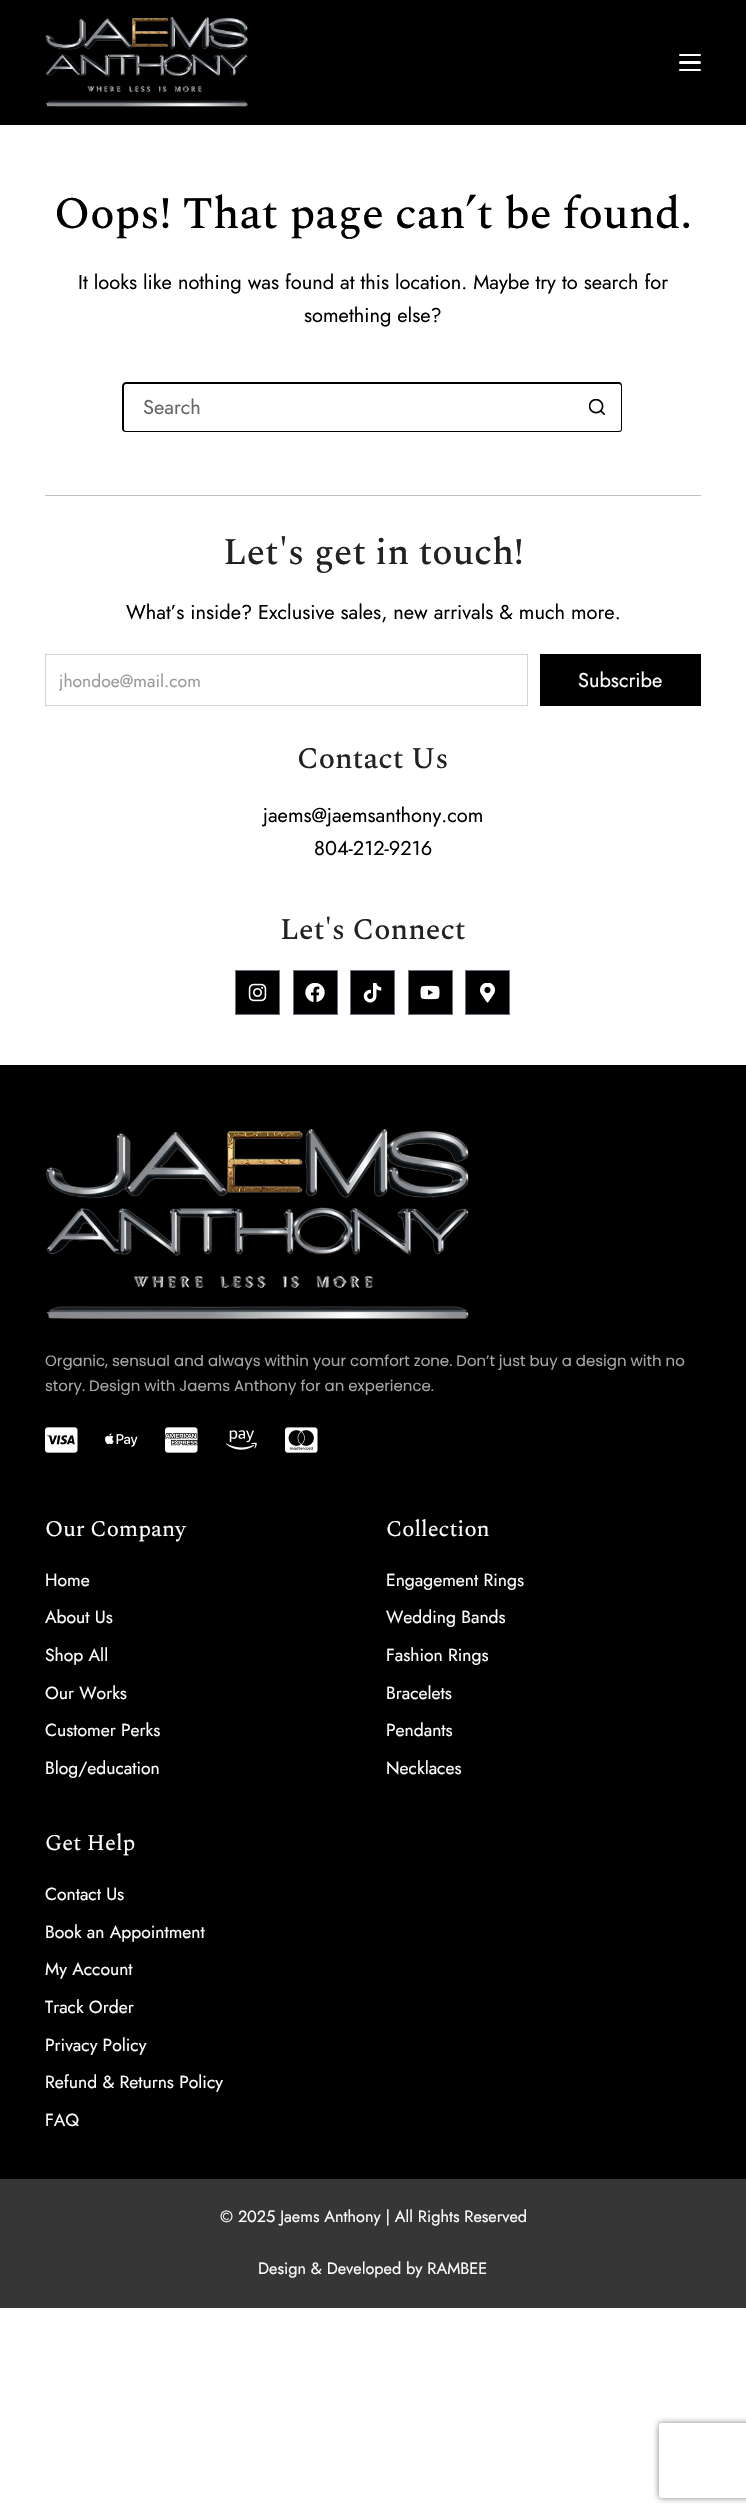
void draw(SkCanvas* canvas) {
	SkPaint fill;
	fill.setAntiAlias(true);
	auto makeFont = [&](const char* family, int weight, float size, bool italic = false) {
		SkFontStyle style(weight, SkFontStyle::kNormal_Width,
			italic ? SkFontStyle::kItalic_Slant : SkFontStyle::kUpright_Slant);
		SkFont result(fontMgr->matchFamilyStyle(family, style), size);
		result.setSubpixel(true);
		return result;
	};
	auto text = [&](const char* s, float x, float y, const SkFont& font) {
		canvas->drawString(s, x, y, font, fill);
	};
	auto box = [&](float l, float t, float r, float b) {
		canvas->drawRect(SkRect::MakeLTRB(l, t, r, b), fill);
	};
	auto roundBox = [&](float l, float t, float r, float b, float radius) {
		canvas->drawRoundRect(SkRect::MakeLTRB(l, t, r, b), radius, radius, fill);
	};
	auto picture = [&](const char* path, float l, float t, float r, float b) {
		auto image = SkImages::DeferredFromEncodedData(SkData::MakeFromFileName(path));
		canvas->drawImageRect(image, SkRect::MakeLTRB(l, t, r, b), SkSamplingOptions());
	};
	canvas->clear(0xFFFFFFFF);
	fill.setColor(0xFF000000);
	box(0, 0, 746, 125);
	picture("image0.png", 45, 17, 248, 107);
	fill.setColor(0xFFFFFFFF);
	roundBox(679, 54, 701, 56, 1);
	roundBox(679, 61, 701, 64, 1.5f);
	roundBox(679, 69, 701, 71, 1);
	fill.setColor(0xFF000000);
	canvas->drawPath(SkPathBuilder(SkPathFillType::kEvenOdd).moveTo(126, 382).lineTo(572, 382).lineTo(572, 432).lineTo(126, 432).cubicTo(124, 432, 122, 431, 122, 429).lineTo(122, 386).cubicTo(122, 384, 124, 382, 126, 382).close().moveTo(126, 384).lineTo(572, 384).lineTo(572, 431).lineTo(126, 431).cubicTo(125, 431, 124, 430, 124, 429).lineTo(124, 386).cubicTo(124, 385, 125, 384, 126, 384).close().detach(), fill);
	canvas->drawPath(SkPathBuilder(SkPathFillType::kEvenOdd).moveTo(572, 382).lineTo(619, 382).cubicTo(621, 382, 622, 384, 622, 386).lineTo(622, 429).cubicTo(622, 431, 621, 432, 619, 432).lineTo(572, 432).close().moveTo(572, 384).lineTo(619, 384).cubicTo(620, 384, 621, 385, 621, 386).lineTo(621, 429).cubicTo(621, 430, 620, 431, 619, 431).lineTo(572, 431).close().detach(), fill);
	picture("image1.png", 589, 399, 605, 415);
	fill.setColor(0xFFC1C1C1);
	box(45, 495, 701, 496);
	fill.setStyle(SkPaint::kStroke_Style);
	fill.setStrokeWidth(1);
	fill.setColor(0xFFCED4DA);
	canvas->drawRect(SkRect::MakeLTRB(45.5f, 654.5f, 527.5f, 705.5f), fill);
	fill.setStyle(SkPaint::kFill_Style);
	fill.setColor(0xFF000000);
	box(540, 654, 701, 706);
	canvas->drawRect(SkRect::MakeLTRB(235.5f, 970.5f, 279.5f, 1014.5f), fill);
	fill.setStyle(SkPaint::kStroke_Style);
	fill.setColor(0xFF69727D);
	canvas->drawRect(SkRect::MakeLTRB(235.5f, 970.5f, 279.5f, 1014.5f), fill);
	picture("image2.png", 248, 983, 267, 1002);
	fill.setStyle(SkPaint::kFill_Style);
	fill.setColor(0xFF000000);
	canvas->drawRect(SkRect::MakeLTRB(293.5f, 970.5f, 337.5f, 1014.5f), fill);
	fill.setStyle(SkPaint::kStroke_Style);
	fill.setColor(0xFF69727D);
	canvas->drawRect(SkRect::MakeLTRB(293.5f, 970.5f, 337.5f, 1014.5f), fill);
	picture("image3.png", 305, 983, 325, 1002);
	fill.setStyle(SkPaint::kFill_Style);
	fill.setColor(0xFF000000);
	canvas->drawRect(SkRect::MakeLTRB(350.5f, 970.5f, 394.5f, 1014.5f), fill);
	fill.setStyle(SkPaint::kStroke_Style);
	fill.setColor(0xFF69727D);
	canvas->drawRect(SkRect::MakeLTRB(350.5f, 970.5f, 394.5f, 1014.5f), fill);
	picture("image4.png", 363, 983, 382, 1003);
	fill.setStyle(SkPaint::kFill_Style);
	fill.setColor(0xFF000000);
	canvas->drawRect(SkRect::MakeLTRB(408.5f, 970.5f, 452.5f, 1014.5f), fill);
	fill.setStyle(SkPaint::kStroke_Style);
	fill.setColor(0xFF69727D);
	canvas->drawRect(SkRect::MakeLTRB(408.5f, 970.5f, 452.5f, 1014.5f), fill);
	picture("image5.png", 420, 985, 440, 1000);
	fill.setStyle(SkPaint::kFill_Style);
	fill.setColor(0xFF000000);
	canvas->drawRect(SkRect::MakeLTRB(465.5f, 970.5f, 509.5f, 1014.5f), fill);
	fill.setStyle(SkPaint::kStroke_Style);
	fill.setColor(0xFF69727D);
	canvas->drawRect(SkRect::MakeLTRB(465.5f, 970.5f, 509.5f, 1014.5f), fill);
	picture("image6.png", 480, 983, 495, 1003);
	fill.setStyle(SkPaint::kFill_Style);
	fill.setColor(0xFF000000);
	box(0, 1065, 746, 2179);
	picture("image7.png", 46, 1129, 469, 1320);
	picture("image8.png", 45, 1427, 78, 1453);
	picture("image9.png", 105, 1433, 138, 1447);
	picture("image10.png", 165, 1427, 198, 1453);
	picture("image11.png", 225, 1430, 257, 1450);
	picture("image12.png", 285, 1427, 318, 1453);
	fill.setColor(0xFF363636);
	box(0, 2179, 746, 2308);
	canvas->save();
	canvas->clipPath(SkPathBuilder(SkPathFillType::kEvenOdd).moveTo(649, 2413).lineTo(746, 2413).lineTo(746, 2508).lineTo(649, 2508).close().moveTo(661.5f, 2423).lineTo(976.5f, 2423).cubicTo(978, 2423, 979, 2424, 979, 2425.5f).lineTo(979, 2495.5f).cubicTo(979, 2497, 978, 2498, 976.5f, 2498).lineTo(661.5f, 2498).cubicTo(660, 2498, 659, 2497, 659, 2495.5f).lineTo(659, 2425.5f).cubicTo(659, 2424, 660, 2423, 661.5f, 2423).close().detach(), true);
	fill.setColor(0xFF808080);
	fill.setMaskFilter(SkMaskFilter::MakeBlur(kNormal_SkBlurStyle, 3));
	canvas->drawRoundRect(SkRect::MakeLTRB(659, 2423, 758, 2498), 2.5f, 2.5f, fill);
	fill.setMaskFilter(nullptr);
	canvas->restore();
	auto font1 = makeFont("Spectral", 500, 45);
	fill.setColor(0xFF000000);
	text("Oops! That page can’t be found.", 54, 228, font1);
	auto font2 = makeFont("Jost", 400, 20);
	text("It looks like nothing was found at this location. Maybe try to search for", 78, 289, font2);
	text("something else?", 304, 322, font2);
	fill.setColor(0xFF666666);
	text("Search", 143, 414, font2);
	auto font3 = makeFont("Spectral", 500, 37.5f);
	fill.setColor(0xFF222222);
	text("Let's get in touch!", 223, 564, font3);
	fill.setColor(0xFF000000);
	text("What’s inside? Exclusive sales, new arrivals & much more.", 126, 619, font2);
	canvas->save();
	canvas->clipRect(SkRect::MakeLTRB(59, 668, 514, 693));
	auto font4 = makeFont("Jost", 400, 17.5f);
	fill.setColor(0xFF9A9A9A);
	text("jhondoe@mail.com", 59, 687, font4);
	canvas->restore();
	fill.setColor(0xFFFFFFFF);
	text("Subscribe", 578, 687, font2);
	auto font5 = makeFont("Spectral", 500, 30);
	fill.setColor(0xFF222222);
	text("Contact Us", 297, 768, font5);
	fill.setColor(0xFF000000);
	text("jaems@jaemsanthony.com", 263, 822, font2);
	text("804-212-9216", 314, 855, font2);
	fill.setColor(0xFF222222);
	text("Let's Connect", 280, 939, font5);
	auto font6 = makeFont("Poppins", 400, 15);
	fill.setColor(0xFFA7A7A7);
	text("Organic, sensual and always within your comfort zone. Don’t just buy a design with no", 45, 1366, font6);
	text("story. Design with Jaems Anthony for an experience.", 45, 1391, font6);
	auto font7 = makeFont("Spectral", 400, 22.5f);
	fill.setColor(0xFFFFFFFF);
	text("Our Company", 45, 1536, font7);
	text("Home", 45, 1586, font4);
	text("About Us", 45, 1623, font4);
	text("Shop All", 45, 1661, font4);
	text("Our Works", 45, 1699, font4);
	text("Customer Perks", 45, 1736, font4);
	text("Blog/education", 45, 1774, font4);
	text("Collection", 386, 1536, font7);
	text("Engagement Rings", 386, 1586, font4);
	text("Wedding Bands", 386, 1623, font4);
	text("Fashion Rings", 386, 1661, font4);
	text("Bracelets", 386, 1699, font4);
	text("Pendants", 386, 1736, font4);
	text("Necklaces", 386, 1774, font4);
	text("Get Help", 45, 1850, font7);
	text("Contact Us", 45, 1900, font4);
	text("Book an Appointment", 45, 1938, font4);
	text("My Account", 45, 1975, font4);
	text("Track Order", 45, 2013, font4);
	text("Privacy Policy", 45, 2051, font4);
	text("Refund & Returns Policy", 45, 2088, font4);
	text("FAQ", 45, 2126, font4);
	auto font8 = makeFont("Jost", 400, 16.25f);
	text("© 2025 Jaems Anthony | All Rights Reserved", 220, 2222, font8);
	text("Design & Developed by RAMBEE", 258, 2274, font8);
}
